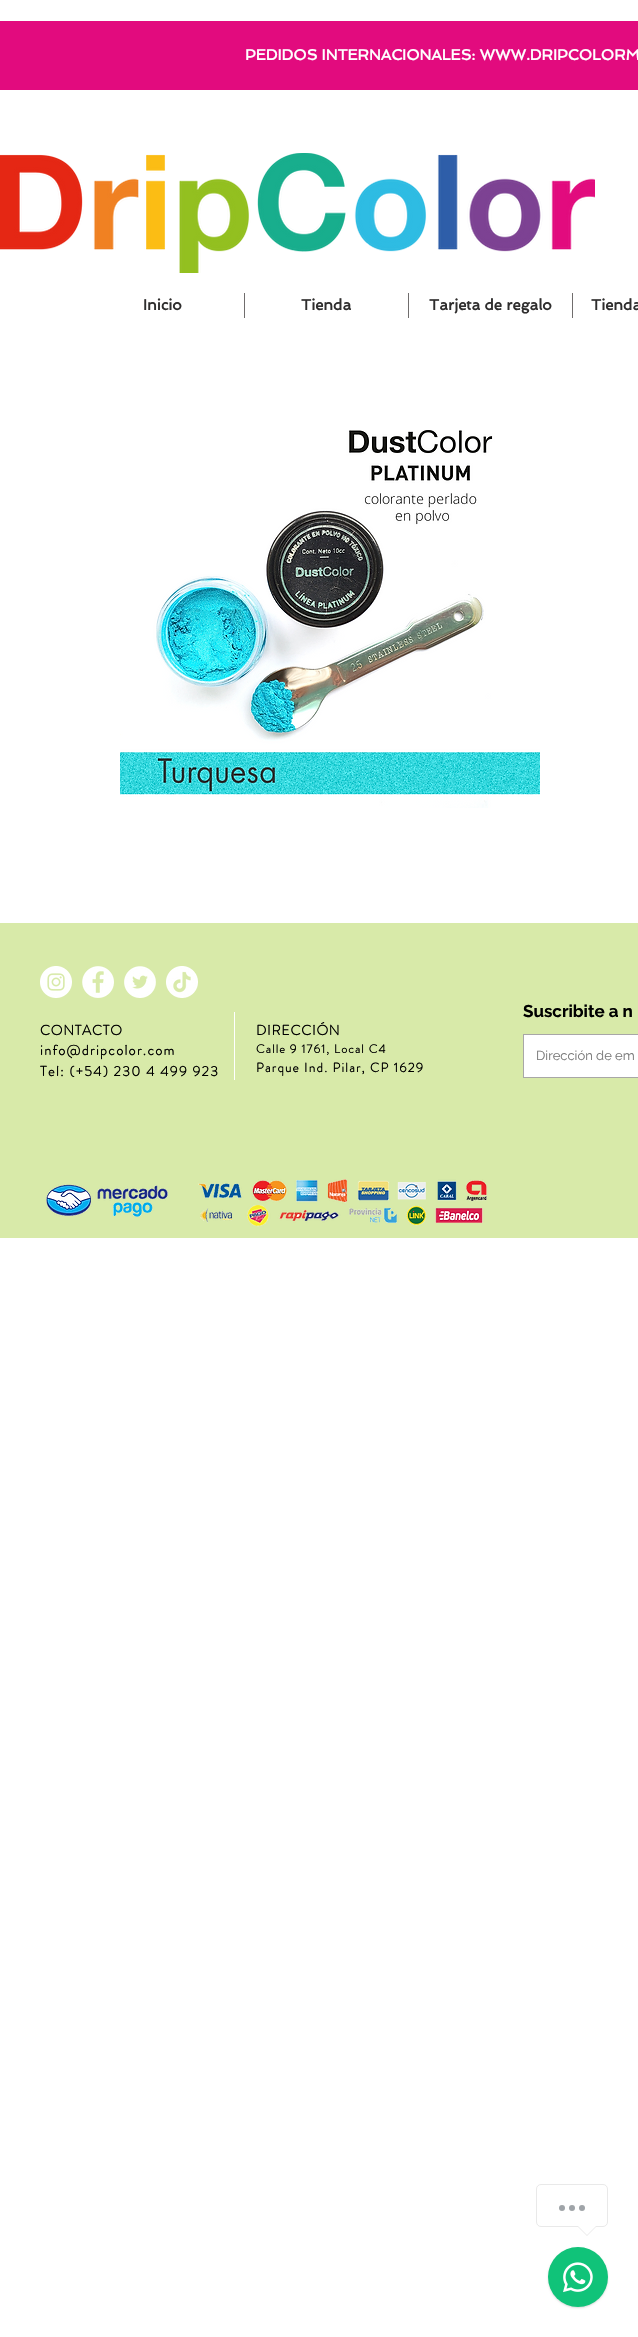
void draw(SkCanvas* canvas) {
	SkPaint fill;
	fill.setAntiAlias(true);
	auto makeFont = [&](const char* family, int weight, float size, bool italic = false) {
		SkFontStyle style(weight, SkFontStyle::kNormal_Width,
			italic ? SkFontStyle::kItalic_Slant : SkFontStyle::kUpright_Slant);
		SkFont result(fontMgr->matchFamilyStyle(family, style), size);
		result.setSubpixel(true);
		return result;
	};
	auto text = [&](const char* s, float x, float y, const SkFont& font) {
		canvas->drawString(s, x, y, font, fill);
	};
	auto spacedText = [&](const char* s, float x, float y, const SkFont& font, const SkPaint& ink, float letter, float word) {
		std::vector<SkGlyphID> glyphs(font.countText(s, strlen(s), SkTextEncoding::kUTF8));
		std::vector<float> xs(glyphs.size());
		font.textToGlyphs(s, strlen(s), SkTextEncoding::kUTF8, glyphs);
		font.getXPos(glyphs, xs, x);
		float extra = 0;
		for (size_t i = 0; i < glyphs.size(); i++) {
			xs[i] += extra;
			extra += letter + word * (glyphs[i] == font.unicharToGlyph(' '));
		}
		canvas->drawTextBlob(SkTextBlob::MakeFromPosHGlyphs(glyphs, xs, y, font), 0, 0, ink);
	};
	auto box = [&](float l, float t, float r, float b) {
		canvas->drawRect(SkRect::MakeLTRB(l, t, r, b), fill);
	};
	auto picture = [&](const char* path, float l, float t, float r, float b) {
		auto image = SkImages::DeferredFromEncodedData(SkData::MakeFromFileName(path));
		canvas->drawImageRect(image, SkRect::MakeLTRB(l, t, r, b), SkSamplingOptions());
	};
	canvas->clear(0xFFFFFFFF);
	fill.setColor(0xFFE20B7E);
	box(0, 21, 638, 90);
	picture("image0.png", 0, 153, 595, 273);
	fill.setColor(0xFF706D6D);
	box(244, 293, 245, 318);
	box(408, 293, 409, 318);
	box(572, 293, 573, 318);
	picture("image1.png", 120, 430, 540, 808);
	fill.setColor(0xFFD8EAA9);
	box(0, 923, 638, 1238);
	picture("image2.png", 40, 966, 72, 998);
	picture("image3.png", 82, 966, 114, 998);
	picture("image4.png", 124, 966, 156, 998);
	picture("image5.png", 166, 966, 198, 998);
	fill.setColor(0xFFFFFFFF);
	box(234, 1012, 235, 1080);
	canvas->drawRect(SkRect::MakeLTRB(523.5f, 1034.5f, 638.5f, 1077.5f), fill);
	fill.setStyle(SkPaint::kStroke_Style);
	fill.setStrokeWidth(1);
	fill.setColor(0xFFA8A7A7);
	canvas->drawRect(SkRect::MakeLTRB(523.5f, 1034.5f, 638.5f, 1077.5f), fill);
	picture("image6.png", 46, 1184, 168, 1217);
	picture("image7.png", 198, 1179, 487, 1227);
	fill.setColor(0xFFE9E9E9);
	canvas->drawRoundRect(SkRect::MakeLTRB(536.5f, 2184.5f, 607.5f, 2226.5f), 4.5f, 4.5f, fill);
	fill.setStyle(SkPaint::kFill_Style);
	fill.setColor(0xFF9FA4A8);
	canvas->drawCircle(562, 2208, 3, fill);
	canvas->drawCircle(572, 2208, 3, fill);
	canvas->drawCircle(582, 2208, 3, fill);
	fill.setColor(0xFFE9E9E9);
	canvas->drawPath(SkPathBuilder().moveTo(577, 2226).lineTo(597, 2226).lineTo(587, 2236).close().detach(), fill);
	fill.setColor(0xFFFFFFFF);
	canvas->drawPath(SkPathBuilder().moveTo(578, 2226).lineTo(596, 2226).lineTo(587, 2235).close().detach(), fill);
	fill.setColor(0x26000000);
	fill.setMaskFilter(SkMaskFilter::MakeBlur(kNormal_SkBlurStyle, 1));
	canvas->drawRoundRect(SkRect::MakeLTRB(548, 2248, 608, 2308), 30, 30, fill);
	fill.setMaskFilter(nullptr);
	fill.setColor(0xFF10C379);
	canvas->drawCircle(578, 2277, 30, fill);
	picture("image8.png", 563, 2262, 593, 2293);
	auto font1 = makeFont("Spinnaker", 700, 15);
	fill.setColor(0xFFFFFFFF);
	text("PEDIDOS INTERNACIONALES: WWW.DRIPCOLORM", 245, 60, font1);
	fill.setColor(0xFF2F2E2E);
	text("Inicio", 143, 310, font1);
	text("Tienda", 301, 310, font1);
	text("Tarjeta de regalo", 429, 310, font1);
	text("Tienda", 591, 310, font1);
	auto font2 = makeFont("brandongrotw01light", 700, 14);
	fill.setColor(0xFF000000);
	spacedText("CONTACTO", 40, 1035, font2, fill, 0.75f, 0);
	spacedText("info@dripcolor.com", 40, 1055, font2, fill, 1.4f, 0);
	spacedText("Tel: (+54) 230 4 499 923", 40, 1076, font2, fill, 1.4f, 0);
	spacedText("DIRECCIÓN", 256, 1035, font2, fill, 0.75f, 0);
	auto font3 = makeFont("brandongrotw01light", 700, 12);
	spacedText("Calle 9 1761, Local C4", 256, 1053, font3, fill, 1.2f, 0);
	auto font4 = makeFont("brandongrotw01light", 700, 13);
	spacedText("Parque Ind. Pilar, CP 1629", 256, 1072, font4, fill, 1.3f, 0);
	auto font5 = makeFont("Raleway", 700, 17);
	text("Suscribite a n", 523, 1017, font5);
	auto font6 = makeFont("Raleway", 400, 13);
	fill.setColor(0xFF797979);
	text("Dirección de em", 536, 1060, font6);
}
